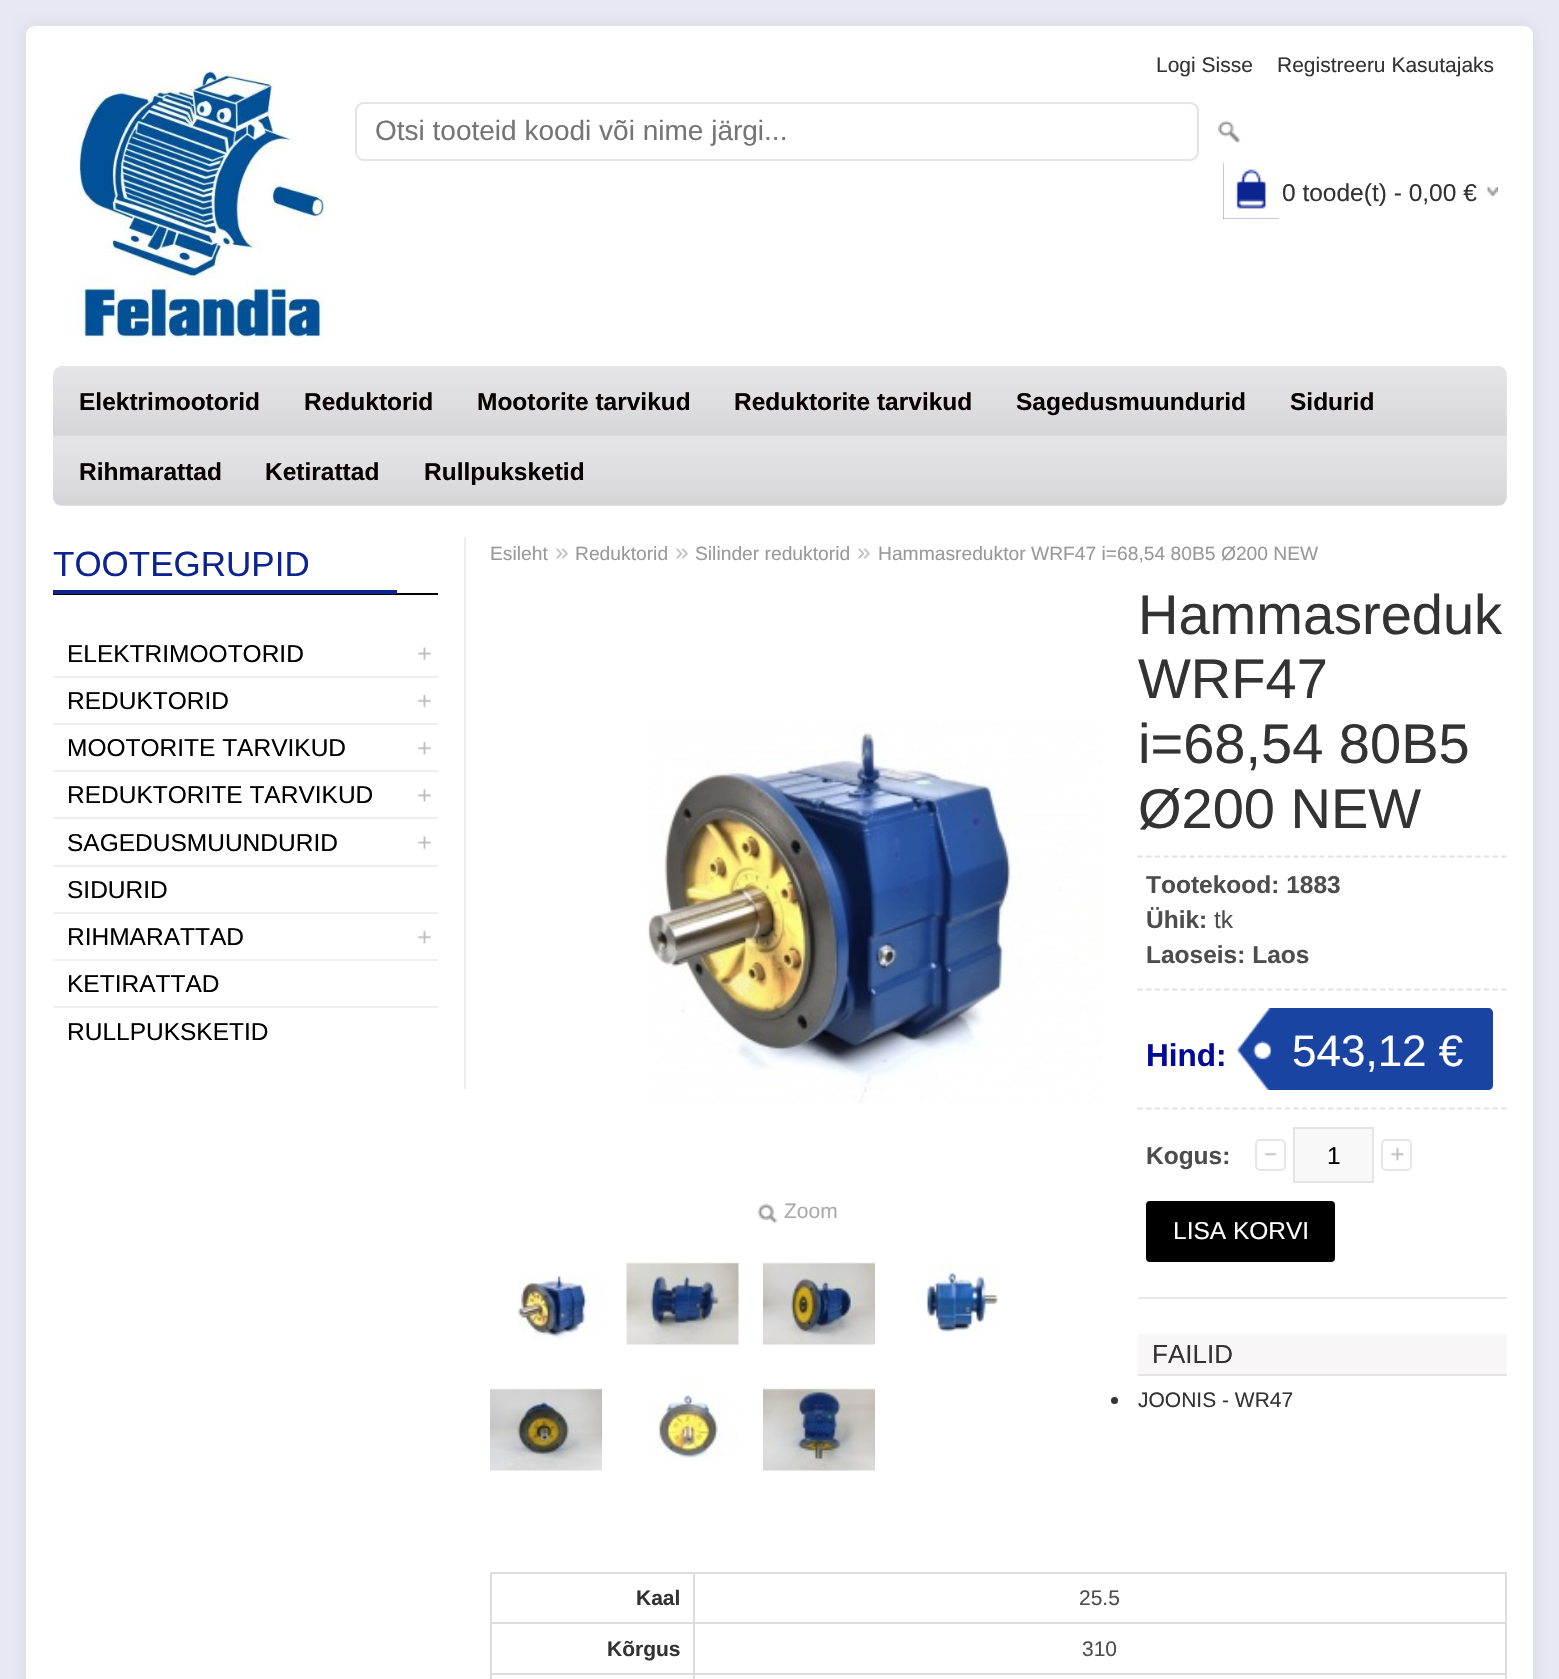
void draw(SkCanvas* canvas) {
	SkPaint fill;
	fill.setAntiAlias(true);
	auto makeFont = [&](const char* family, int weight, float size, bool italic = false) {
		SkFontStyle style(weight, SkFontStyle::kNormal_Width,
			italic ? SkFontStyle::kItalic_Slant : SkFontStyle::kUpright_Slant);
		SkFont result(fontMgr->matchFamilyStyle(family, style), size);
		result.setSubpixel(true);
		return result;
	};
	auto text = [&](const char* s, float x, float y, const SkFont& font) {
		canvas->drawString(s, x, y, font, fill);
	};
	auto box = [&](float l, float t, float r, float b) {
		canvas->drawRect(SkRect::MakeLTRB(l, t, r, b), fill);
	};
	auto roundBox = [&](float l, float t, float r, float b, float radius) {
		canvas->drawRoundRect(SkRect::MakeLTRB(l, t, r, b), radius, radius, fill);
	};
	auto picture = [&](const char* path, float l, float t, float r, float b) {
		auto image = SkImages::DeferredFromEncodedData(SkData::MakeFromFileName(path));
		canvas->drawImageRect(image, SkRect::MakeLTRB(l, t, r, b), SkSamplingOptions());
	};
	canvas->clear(0xFFE6E9F3);
	fill.setColor(0x14000000);
	fill.setMaskFilter(SkMaskFilter::MakeBlur(kNormal_SkBlurStyle, 7));
	canvas->drawRoundRect(SkRect::MakeLTRB(26, 26, 1533, 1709), 9, 9, fill);
	fill.setMaskFilter(nullptr);
	fill.setColor(0xFFFFFFFF);
	canvas->drawPath(SkPathBuilder().moveTo(35, 26).lineTo(1524, 26).cubicTo(1529, 26, 1533, 30, 1533, 35).lineTo(1533, 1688).lineTo(26, 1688).lineTo(26, 35).cubicTo(26, 30, 30, 26, 35, 26).close().detach(), fill);
	picture("image0.png", 78, 71, 325, 344);
	fill.setStyle(SkPaint::kStroke_Style);
	fill.setStrokeWidth(2);
	fill.setColor(0xFFE4E4E4);
	canvas->drawRoundRect(SkRect::MakeLTRB(356, 103, 1198, 160), 8, 8, fill);
	picture("image1.png", 1218, 120, 1241, 143);
	fill.setStyle(SkPaint::kFill_Style);
	fill.setColor(0xFF0C2490);
	box(1223, 163, 1279, 219);
	picture("image2.png", 1223, 163, 1279, 219);
	picture("image3.png", 1487, 187, 1498, 196);
	fill.setColor(0xFFE9E9EB);
	roundBox(53, 366, 1507, 506, 9);
	picture("image4.png", 53, 366, 1507, 506);
	fill.setColor(0xFFEEEEEE);
	box(464, 537, 466, 1089);
	fill.setColor(0xFF000004);
	box(53, 593, 438, 595);
	fill.setColor(0xFF0C2490);
	box(53, 590, 397, 594);
	picture("image5.png", 417, 647, 431, 661);
	fill.setColor(0xFFEEEEEE);
	box(53, 676, 438, 678);
	picture("image6.png", 417, 694, 431, 708);
	box(53, 723, 438, 725);
	picture("image7.png", 417, 741, 431, 755);
	box(53, 770, 438, 772);
	picture("image8.png", 417, 788, 431, 802);
	box(53, 817, 438, 819);
	picture("image5.png", 417, 836, 431, 850);
	box(53, 865, 438, 867);
	box(53, 912, 438, 914);
	picture("image7.png", 417, 930, 431, 944);
	box(53, 959, 438, 961);
	box(53, 1006, 438, 1008);
	picture("image9.png", 647, 723, 1102, 1104);
	picture("image10.png", 757, 1204, 777, 1224);
	picture("image11.png", 517, 1275, 602, 1340);
	picture("image12.png", 626, 1262, 739, 1345);
	picture("image13.png", 763, 1262, 875, 1345);
	picture("image14.png", 925, 1263, 998, 1332);
	picture("image15.png", 490, 1388, 602, 1471);
	picture("image16.png", 655, 1376, 738, 1458);
	picture("image17.png", 763, 1383, 875, 1471);
	fill.setStyle(SkPaint::kStroke_Style);
	fill.setStrokeWidth(1.8f);
	fill.setColor(0xFFE2E2E2);
	fill.setPathEffect(SkDashPathEffect::Make({{5.25f, 3.41f}}, 0));
	canvas->drawPath(SkPathBuilder().moveTo(1137.5f, 856.5f).lineTo(1507, 856.5f).detach(), fill);
	fill.setPathEffect(nullptr);
	fill.setPathEffect(SkDashPathEffect::Make({{5.25f, 3.41f}}, 0));
	canvas->drawPath(SkPathBuilder().moveTo(1137.5f, 989.5f).lineTo(1507, 989.5f).detach(), fill);
	fill.setPathEffect(nullptr);
	fill.setPathEffect(SkDashPathEffect::Make({{5.25f, 3.41f}}, 0));
	canvas->drawPath(SkPathBuilder().moveTo(1137.5f, 1108.5f).lineTo(1507, 1108.5f).detach(), fill);
	fill.setPathEffect(nullptr);
	fill.setStyle(SkPaint::kFill_Style);
	fill.setColor(0xFF1A44A2);
	canvas->drawPath(SkPathBuilder().moveTo(1236, 1008).lineTo(1488, 1008).cubicTo(1491, 1008, 1493, 1010, 1493, 1013).lineTo(1493, 1085).cubicTo(1493, 1088, 1491, 1090, 1488, 1090).lineTo(1236, 1090).close().detach(), fill);
	picture("image18.png", 1236, 1008, 1272, 1090);
	fill.setColor(0xFFE7E7E7);
	box(1138, 1297, 1507, 1299);
	picture("image19.png", 1264, 1152, 1277, 1156);
	fill.setStyle(SkPaint::kStroke_Style);
	fill.setStrokeWidth(2);
	fill.setColor(0xFFE6E6E6);
	canvas->drawRoundRect(SkRect::MakeLTRB(1256, 1140, 1285, 1170), 4, 4, fill);
	fill.setStyle(SkPaint::kFill_Style);
	fill.setColor(0xFFF8F8F8);
	canvas->drawRect(SkRect::MakeLTRB(1294, 1128, 1373, 1182), fill);
	fill.setStyle(SkPaint::kStroke_Style);
	fill.setColor(0xFFE4E4E4);
	canvas->drawRect(SkRect::MakeLTRB(1294, 1128, 1373, 1182), fill);
	picture("image20.png", 1390, 1147, 1404, 1161);
	fill.setColor(0xFFE6E6E6);
	canvas->drawRoundRect(SkRect::MakeLTRB(1382, 1140, 1411, 1170), 4, 4, fill);
	fill.setStyle(SkPaint::kFill_Style);
	fill.setColor(0xFF000000);
	roundBox(1146, 1201, 1335, 1262, 4);
	fill.setColor(0xFFF8F6F6);
	box(1138, 1334, 1507, 1374);
	fill.setColor(0xFFE4E4E4);
	box(1138, 1374, 1507, 1376);
	fill.setColor(0xFF333333);
	canvas->drawCircle(1114.5f, 1400.5f, 3.5f, fill);
	fill.setColor(0xFFDDDDDD);
	box(490, 1572, 1507, 1574);
	box(490, 1572, 492, 1679);
	box(693, 1673, 695, 1679);
	box(1505, 1572, 1507, 1679);
	box(693, 1673, 1507, 1675);
	box(693, 1622, 695, 1675);
	box(693, 1622, 1507, 1624);
	box(693, 1572, 695, 1624);
	box(490, 1622, 695, 1624);
	box(490, 1673, 695, 1675);
	auto font1 = makeFont("Liberation Sans", 400, 21);
	fill.setColor(0xFF333333);
	text("Logi Sisse", 1156, 72, font1);
	text("Registreeru Kasutajaks", 1277, 72, font1);
	auto font2 = makeFont("Liberation Sans", 400, 28);
	fill.setColor(0xFF757575);
	text("Otsi tooteid koodi või nime järgi...", 375, 140, font2);
	auto font3 = makeFont("Liberation Sans", 400, 24.5f);
	fill.setColor(0xFF333333);
	text("0 toode(t) - 0,00 €", 1282, 201, font3);
	auto font4 = makeFont("Liberation Sans", 700, 24.5f);
	fill.setColor(0xFF090101);
	text("Elektrimootorid", 79, 410, font4);
	text("Reduktorid", 304, 410, font4);
	text("Mootorite tarvikud", 477, 410, font4);
	text("Reduktorite tarvikud", 734, 410, font4);
	text("Sagedusmuundurid", 1016, 410, font4);
	text("Sidurid", 1290, 410, font4);
	text("Rihmarattad", 79, 480, font4);
	text("Ketirattad", 265, 480, font4);
	text("Rullpuksketid", 424, 480, font4);
	auto font5 = makeFont("Liberation Sans", 400, 35);
	fill.setColor(0xFF0C2490);
	text("TOOTEGRUPID", 53, 576, font5);
	fill.setColor(0xFF000000);
	text("ELEKTRIMOOTORID", 67, 662, font3);
	text("REDUKTORID", 67, 709, font3);
	text("MOOTORITE TARVIKUD", 67, 756, font3);
	text("REDUKTORITE TARVIKUD", 67, 803, font3);
	text("SAGEDUSMUUNDURID", 67, 851, font3);
	text("SIDURID", 67, 898, font3);
	text("RIHMARATTAD", 67, 945, font3);
	text("KETIRATTAD", 67, 992, font3);
	text("RULLPUKSKETID", 67, 1040, font3);
	auto font6 = makeFont("Liberation Sans", 400, 19.25f);
	fill.setColor(0xFF999999);
	text("Esileht", 490, 560, font6);
	fill.setColor(0xFFC2C2C2);
	text("»", 555, 560, font3);
	fill.setColor(0xFF999999);
	text("Reduktorid", 575, 560, font6);
	fill.setColor(0xFFC2C2C2);
	text("»", 675, 560, font3);
	fill.setColor(0xFF999999);
	text("Silinder reduktorid", 695, 560, font6);
	fill.setColor(0xFFC2C2C2);
	text("»", 857, 560, font3);
	fill.setColor(0xFF999999);
	text("Hammasreduktor WRF47 i=68,54 80B5 Ø200 NEW", 878, 560, font6);
	fill.setColor(0xFFABABAB);
	text("Zoom", 784, 1218, font1);
	auto font7 = makeFont("Liberation Sans", 400, 56);
	fill.setColor(0xFF333333);
	text("Hammasreduk", 1138, 634, font7);
	text("WRF47", 1138, 698, font7);
	text("i=68,54 80B5", 1138, 763, font7);
	text("Ø200 NEW", 1138, 828, font7);
	fill.setColor(0xFF4D4D4D);
	text("Tootekood: 1883", 1146, 893, font4);
	text("Ühik:", 1146, 928, font4);
	text("tk", 1214, 928, font3);
	text("Laoseis: Laos", 1146, 963, font4);
	auto font8 = makeFont("Liberation Sans", 700, 31.5f);
	fill.setColor(0xFF020A98);
	text("Hind:", 1146, 1066, font8);
	auto font9 = makeFont("Liberation Sans", 400, 44);
	fill.setColor(0xFFFFFFFF);
	text("543,12 €", 1292, 1066, font9);
	fill.setColor(0xFF4D4D4D);
	text("Kogus:", 1146, 1164, font4);
	fill.setColor(0xFF000000);
	text("1", 1327, 1164, font3);
	fill.setColor(0xFFFFFFFF);
	text("LISA KORVI", 1173, 1239, font3);
	auto font10 = makeFont("Liberation Sans", 400, 26);
	fill.setColor(0xFF333333);
	text("FAILID", 1152, 1363, font10);
	text("JOONIS - WR47", 1138, 1407, font1);
	auto font11 = makeFont("Liberation Sans", 700, 21);
	text("Kaal", 636, 1605, font11);
	fill.setColor(0xFF4D4D4D);
	text("25.5", 1079, 1605, font1);
	fill.setColor(0xFF333333);
	text("Kõrgus", 607, 1656, font11);
	fill.setColor(0xFF4D4D4D);
	text("310", 1082, 1656, font1);
}
